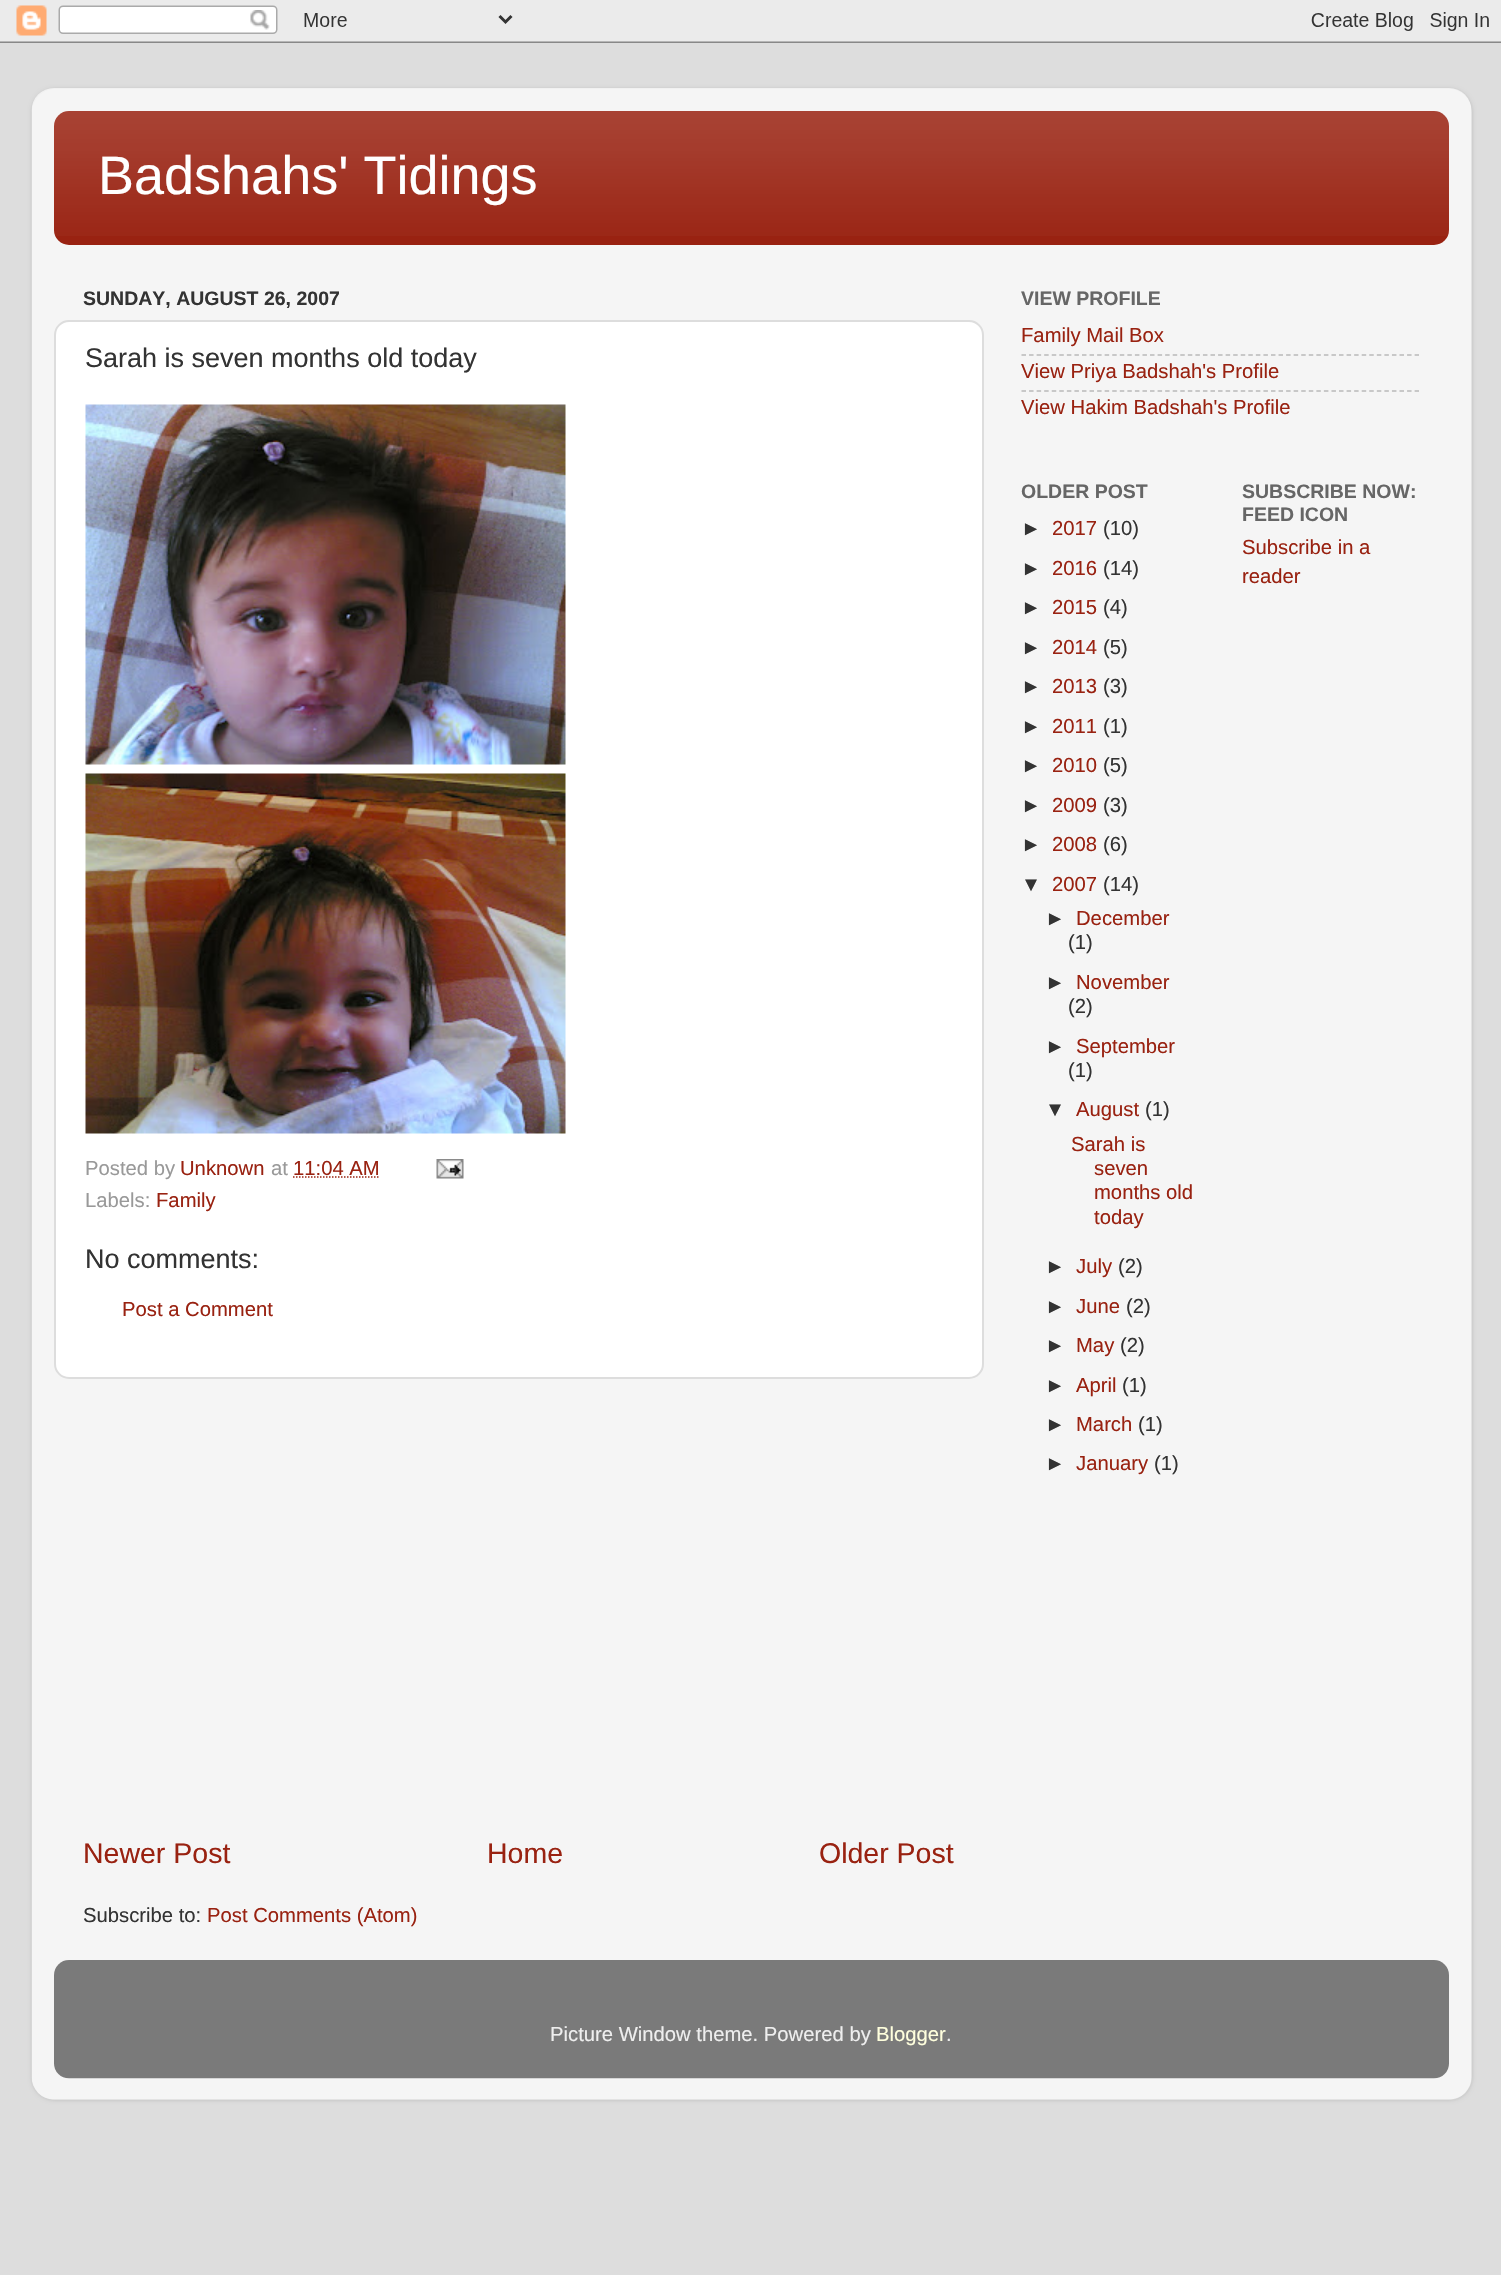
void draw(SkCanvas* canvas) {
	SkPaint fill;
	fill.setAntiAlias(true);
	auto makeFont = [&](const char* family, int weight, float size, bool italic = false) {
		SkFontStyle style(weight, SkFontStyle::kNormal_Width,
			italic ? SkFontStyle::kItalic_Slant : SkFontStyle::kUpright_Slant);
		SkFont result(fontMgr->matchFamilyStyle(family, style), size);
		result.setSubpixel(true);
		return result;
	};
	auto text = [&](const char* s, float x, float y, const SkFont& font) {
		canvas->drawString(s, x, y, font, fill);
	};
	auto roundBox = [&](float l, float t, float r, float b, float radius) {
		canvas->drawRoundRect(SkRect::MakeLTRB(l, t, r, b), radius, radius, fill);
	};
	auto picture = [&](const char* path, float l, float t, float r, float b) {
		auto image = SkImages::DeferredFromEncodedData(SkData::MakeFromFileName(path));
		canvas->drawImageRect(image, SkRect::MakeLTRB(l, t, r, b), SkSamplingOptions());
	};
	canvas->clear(0xFFDDDDDD);
	picture("image0.png", 0, 0, 1501, 43);
	canvas->save();
	canvas->clipPath(SkPathBuilder(SkPathFillType::kEvenOdd).moveTo(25, 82).lineTo(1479, 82).lineTo(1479, 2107).lineTo(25, 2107).close().moveTo(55, 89).lineTo(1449, 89).cubicTo(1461.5f, 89, 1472, 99.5f, 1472, 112).lineTo(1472, 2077).cubicTo(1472, 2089.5f, 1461.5f, 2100, 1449, 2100).lineTo(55, 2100).cubicTo(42.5f, 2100, 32, 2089.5f, 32, 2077).lineTo(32, 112).cubicTo(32, 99.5f, 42.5f, 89, 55, 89).close().detach(), true);
	fill.setColor(0x26000000);
	fill.setMaskFilter(SkMaskFilter::MakeBlur(kNormal_SkBlurStyle, 2));
	canvas->drawRoundRect(SkRect::MakeLTRB(32, 89, 1472, 2100), 23, 23, fill);
	fill.setMaskFilter(nullptr);
	canvas->restore();
	picture("image1.png", 31, 88, 1472, 2100);
	fill.setColor(0xFF992211);
	roundBox(54, 111, 1449, 245, 15);
	picture("image2.png", 54, 111, 1449, 236);
	fill.setColor(0xFFFFFFFF);
	canvas->drawRoundRect(SkRect::MakeLTRB(55, 321, 983, 1378), 14, 14, fill);
	fill.setStyle(SkPaint::kStroke_Style);
	fill.setStrokeWidth(2);
	fill.setColor(0xFFDDDDDD);
	canvas->drawRoundRect(SkRect::MakeLTRB(55, 321, 983, 1378), 14, 14, fill);
	picture("image3.png", 85, 404, 566, 765);
	picture("image4.png", 85, 773, 566, 1134);
	fill.setStrokeWidth(1.5f);
	fill.setColor(0xFF992211);
	fill.setPathEffect(SkDashPathEffect::Make({{1.5f, 1.5f}}, 0));
	canvas->drawPath(SkPathBuilder().moveTo(293, 1177).lineTo(379.5f, 1177).detach(), fill);
	fill.setPathEffect(nullptr);
	picture("image5.png", 436, 1159, 464, 1179);
	fill.setColor(0xFFBABABA);
	fill.setPathEffect(SkDashPathEffect::Make({{4.5f, 3.06f}}, 0));
	canvas->drawPath(SkPathBuilder().moveTo(1021.5f, 355).lineTo(1419, 355).detach(), fill);
	fill.setPathEffect(nullptr);
	fill.setPathEffect(SkDashPathEffect::Make({{4.5f, 3.06f}}, 0));
	canvas->drawPath(SkPathBuilder().moveTo(1021.5f, 391).lineTo(1419, 391).detach(), fill);
	fill.setPathEffect(nullptr);
	picture("image6.png", 54, 1960, 1449, 2079);
	auto font1 = makeFont("Liberation Sans", 400, 54);
	fill.setStyle(SkPaint::kFill_Style);
	fill.setColor(0xFFFFFFFF);
	text("Badshahs' Tidings", 98, 194, font1);
	auto font2 = makeFont("Liberation Sans", 700, 19.5f);
	fill.setColor(0xFF333333);
	text("SUNDAY, AUGUST 26, 2007", 83, 305, font2);
	auto font3 = makeFont("Liberation Sans", 400, 27);
	text("Sarah is seven months old today", 85, 367, font3);
	auto font4 = makeFont("Liberation Sans", 400, 20.25f);
	fill.setColor(0xFF999999);
	text("Posted by", 85, 1175, font4);
	fill.setColor(0xFF992211);
	text("Unknown", 180, 1175, font4);
	fill.setColor(0xFF999999);
	text("at", 271, 1175, font4);
	fill.setColor(0xFF992211);
	text("11:04 AM", 293, 1175, font4);
	fill.setColor(0xFF999999);
	text("Labels:", 85, 1207, font4);
	fill.setColor(0xFF992211);
	text("Family", 156, 1207, font4);
	fill.setColor(0xFF333333);
	text("No comments:", 85, 1268, font3);
	fill.setColor(0xFF992211);
	text("Post a Comment", 122, 1316, font4);
	auto font5 = makeFont("Liberation Sans", 400, 28.5f);
	text("Newer Post", 83, 1863, font5);
	text("Home", 487, 1863, font5);
	text("Older Post", 819, 1863, font5);
	fill.setColor(0xFF333333);
	text("Subscribe to:", 83, 1922, font4);
	fill.setColor(0xFF992211);
	text("Post Comments (Atom)", 207, 1922, font4);
	fill.setColor(0xFF666666);
	text("VIEW PROFILE", 1021, 305, font2);
	fill.setColor(0xFF992211);
	text("Family Mail Box", 1021, 342, font4);
	text("View Priya Badshah's Profile", 1021, 378, font4);
	text("View Hakim Badshah's Profile", 1021, 414, font4);
	fill.setColor(0xFF666666);
	text("OLDER POST", 1021, 498, font2);
	fill.setColor(0xFF333333);
	text("►", 1021, 535, font4);
	fill.setColor(0xFF992211);
	text("2017", 1052, 535, font4);
	fill.setColor(0xFF333333);
	text("(10)", 1103, 535, font4);
	text("►", 1021, 575, font4);
	fill.setColor(0xFF992211);
	text("2016", 1052, 575, font4);
	fill.setColor(0xFF333333);
	text("(14)", 1103, 575, font4);
	text("►", 1021, 614, font4);
	fill.setColor(0xFF992211);
	text("2015", 1052, 614, font4);
	fill.setColor(0xFF333333);
	text("(4)", 1103, 614, font4);
	text("►", 1021, 654, font4);
	fill.setColor(0xFF992211);
	text("2014", 1052, 654, font4);
	fill.setColor(0xFF333333);
	text("(5)", 1103, 654, font4);
	text("►", 1021, 693, font4);
	fill.setColor(0xFF992211);
	text("2013", 1052, 693, font4);
	fill.setColor(0xFF333333);
	text("(3)", 1103, 693, font4);
	text("►", 1021, 733, font4);
	fill.setColor(0xFF992211);
	text("2011", 1052, 733, font4);
	fill.setColor(0xFF333333);
	text("(1)", 1103, 733, font4);
	text("►", 1021, 772, font4);
	fill.setColor(0xFF992211);
	text("2010", 1052, 772, font4);
	fill.setColor(0xFF333333);
	text("(5)", 1103, 772, font4);
	text("►", 1021, 812, font4);
	fill.setColor(0xFF992211);
	text("2009", 1052, 812, font4);
	fill.setColor(0xFF333333);
	text("(3)", 1103, 812, font4);
	text("►", 1021, 851, font4);
	fill.setColor(0xFF992211);
	text("2008", 1052, 851, font4);
	fill.setColor(0xFF333333);
	text("(6)", 1103, 851, font4);
	text("▼", 1021, 891, font4);
	fill.setColor(0xFF992211);
	text("2007", 1052, 891, font4);
	fill.setColor(0xFF333333);
	text("(14)", 1103, 891, font4);
	text("►", 1045, 925, font4);
	fill.setColor(0xFF992211);
	text("December", 1076, 925, font4);
	fill.setColor(0xFF333333);
	text("(1)", 1068, 949, font4);
	text("►", 1045, 989, font4);
	fill.setColor(0xFF992211);
	text("November", 1076, 989, font4);
	fill.setColor(0xFF333333);
	text("(2)", 1068, 1013, font4);
	text("►", 1045, 1053, font4);
	fill.setColor(0xFF992211);
	text("September", 1076, 1053, font4);
	fill.setColor(0xFF333333);
	text("(1)", 1068, 1077, font4);
	text("▼", 1045, 1116, font4);
	fill.setColor(0xFF992211);
	text("August", 1076, 1116, font4);
	fill.setColor(0xFF333333);
	text("(1)", 1145, 1116, font4);
	fill.setColor(0xFF992211);
	text("Sarah is", 1071, 1151, font4);
	text("seven", 1094, 1175, font4);
	text("months old", 1094, 1199, font4);
	text("today", 1094, 1224, font4);
	fill.setColor(0xFF333333);
	text("►", 1045, 1273, font4);
	fill.setColor(0xFF992211);
	text("July", 1076, 1273, font4);
	fill.setColor(0xFF333333);
	text("(2)", 1118, 1273, font4);
	text("►", 1045, 1313, font4);
	fill.setColor(0xFF992211);
	text("June", 1076, 1313, font4);
	fill.setColor(0xFF333333);
	text("(2)", 1126, 1313, font4);
	text("►", 1045, 1352, font4);
	fill.setColor(0xFF992211);
	text("May", 1076, 1352, font4);
	fill.setColor(0xFF333333);
	text("(2)", 1120, 1352, font4);
	text("►", 1045, 1392, font4);
	fill.setColor(0xFF992211);
	text("April", 1076, 1392, font4);
	fill.setColor(0xFF333333);
	text("(1)", 1122, 1392, font4);
	text("►", 1045, 1431, font4);
	fill.setColor(0xFF992211);
	text("March", 1076, 1431, font4);
	fill.setColor(0xFF333333);
	text("(1)", 1138, 1431, font4);
	text("►", 1045, 1470, font4);
	fill.setColor(0xFF992211);
	text("January", 1076, 1470, font4);
	fill.setColor(0xFF333333);
	text("(1)", 1154, 1470, font4);
	fill.setColor(0xFF666666);
	text("SUBSCRIBE NOW:", 1242, 498, font2);
	text("FEED ICON", 1242, 521, font2);
	fill.setColor(0xFF992211);
	text("Subscribe in a", 1242, 554, font4);
	text("reader", 1242, 583, font4);
	fill.setColor(0xFFEEEEEE);
	text("Picture Window theme. Powered by", 550, 2041, font4);
	fill.setColor(0xFFFFFFDD);
	text("Blogger", 876, 2041, font4);
	fill.setColor(0xFFEEEEEE);
	text(".", 946, 2041, font4);
}
